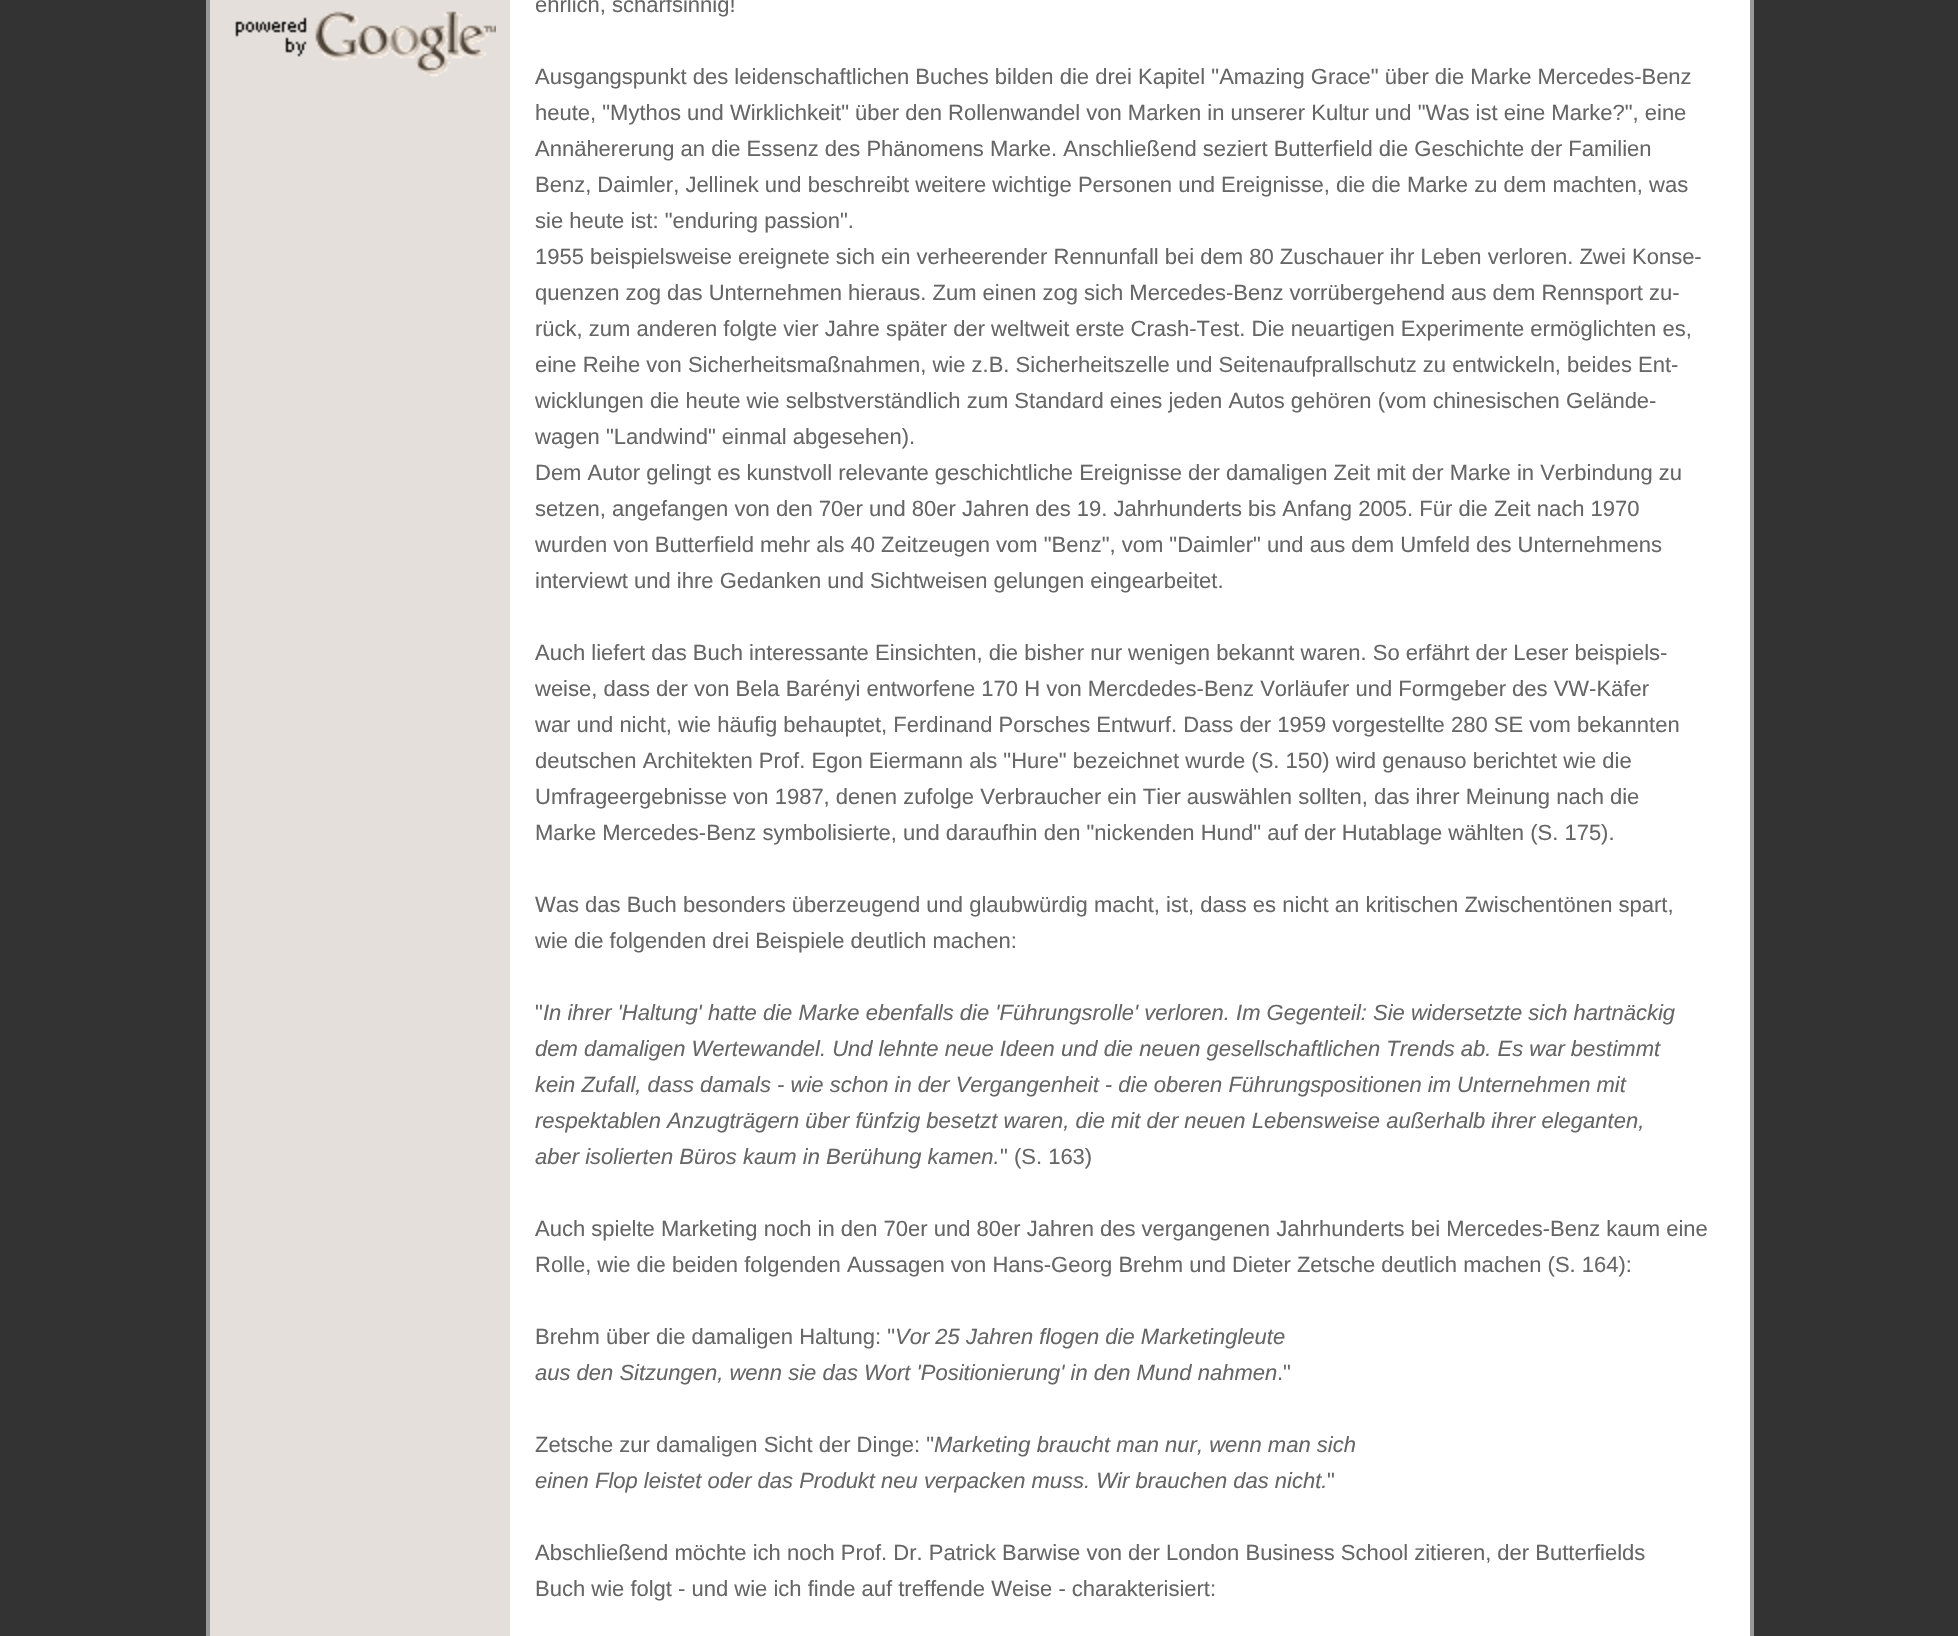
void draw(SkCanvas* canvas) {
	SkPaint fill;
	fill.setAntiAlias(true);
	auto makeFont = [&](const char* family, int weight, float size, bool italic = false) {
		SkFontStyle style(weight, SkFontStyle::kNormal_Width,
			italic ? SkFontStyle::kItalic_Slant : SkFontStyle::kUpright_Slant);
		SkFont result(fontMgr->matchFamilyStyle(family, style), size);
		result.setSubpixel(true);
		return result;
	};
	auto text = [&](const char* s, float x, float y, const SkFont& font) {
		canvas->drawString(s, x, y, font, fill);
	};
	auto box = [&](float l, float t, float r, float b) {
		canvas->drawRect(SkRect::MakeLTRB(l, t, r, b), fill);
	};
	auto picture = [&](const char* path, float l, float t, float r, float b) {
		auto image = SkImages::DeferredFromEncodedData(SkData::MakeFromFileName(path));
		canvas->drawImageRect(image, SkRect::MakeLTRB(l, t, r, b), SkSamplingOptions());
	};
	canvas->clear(0xFF333333);
	fill.setStyle(SkPaint::kStroke_Style);
	fill.setStrokeWidth(2);
	fill.setColor(0xFF999999);
	canvas->drawRect(SkRect::MakeLTRB(207, -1, 1753, 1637), fill);
	canvas->drawRect(SkRect::MakeLTRB(209, -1, 1751, 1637), fill);
	fill.setStyle(SkPaint::kFill_Style);
	fill.setColor(0xFFFFFFFF);
	box(510, 0, 1750, 1636);
	fill.setColor(0xFFE4DFDB);
	box(210, 0, 510, 1636);
	picture("image0.png", 235, 11, 496, 77);
	auto font1 = makeFont("Liberation Sans", 400, 22);
	fill.setColor(0xFF666666);
	text("ehrlich, scharfsinnig!", 535, 12, font1);
	text("Ausgangspunkt des leidenschaftlichen Buches bilden die drei Kapitel \"Amazing Grace\" über die Marke Mercedes-Benz", 535, 84, font1);
	text("heute, \"Mythos und Wirklichkeit\" über den Rollenwandel von Marken in unserer Kultur und \"Was ist eine Marke?\", eine", 535, 120, font1);
	text("Annähererung an die Essenz des Phänomens Marke. Anschließend seziert Butterfield die Geschichte der Familien", 535, 156, font1);
	text("Benz, Daimler, Jellinek und beschreibt weitere wichtige Personen und Ereignisse, die die Marke zu dem machten, was", 535, 192, font1);
	text("sie heute ist: \"enduring passion\".", 535, 228, font1);
	text("1955 beispielsweise ereignete sich ein verheerender Rennunfall bei dem 80 Zuschauer ihr Leben verloren. Zwei Konse-", 535, 264, font1);
	text("quenzen zog das Unternehmen hieraus. Zum einen zog sich Mercedes-Benz vorrübergehend aus dem Rennsport zu-", 535, 300, font1);
	text("rück, zum anderen folgte vier Jahre später der weltweit erste Crash-Test. Die neuartigen Experimente ermöglichten es,", 535, 336, font1);
	text("eine Reihe von Sicherheitsmaßnahmen, wie z.B. Sicherheitszelle und Seitenaufprallschutz zu entwickeln, beides Ent-", 535, 372, font1);
	text("wicklungen die heute wie selbstverständlich zum Standard eines jeden Autos gehören (vom chinesischen Gelände-", 535, 408, font1);
	text("wagen \"Landwind\" einmal abgesehen).", 535, 444, font1);
	text("Dem Autor gelingt es kunstvoll relevante geschichtliche Ereignisse der damaligen Zeit mit der Marke in Verbindung zu", 535, 480, font1);
	text("setzen, angefangen von den 70er und 80er Jahren des 19. Jahrhunderts bis Anfang 2005. Für die Zeit nach 1970", 535, 516, font1);
	text("wurden von Butterfield mehr als 40 Zeitzeugen vom \"Benz\", vom \"Daimler\" und aus dem Umfeld des Unternehmens", 535, 552, font1);
	text("interviewt und ihre Gedanken und Sichtweisen gelungen eingearbeitet.", 535, 588, font1);
	text("Auch liefert das Buch interessante Einsichten, die bisher nur wenigen bekannt waren. So erfährt der Leser beispiels-", 535, 660, font1);
	text("weise, dass der von Bela Barényi entworfene 170 H von Mercdedes-Benz Vorläufer und Formgeber des VW-Käfer", 535, 696, font1);
	text("war und nicht, wie häufig behauptet, Ferdinand Porsches Entwurf. Dass der 1959 vorgestellte 280 SE vom bekannten", 535, 732, font1);
	text("deutschen Architekten Prof. Egon Eiermann als \"Hure\" bezeichnet wurde (S. 150) wird genauso berichtet wie die", 535, 768, font1);
	text("Umfrageergebnisse von 1987, denen zufolge Verbraucher ein Tier auswählen sollten, das ihrer Meinung nach die", 535, 804, font1);
	text("Marke Mercedes-Benz symbolisierte, und daraufhin den \"nickenden Hund\" auf der Hutablage wählten (S. 175).", 535, 840, font1);
	text("Was das Buch besonders überzeugend und glaubwürdig macht, ist, dass es nicht an kritischen Zwischentönen spart,", 535, 912, font1);
	text("wie die folgenden drei Beispiele deutlich machen:", 535, 948, font1);
	text("\"", 535, 1020, font1);
	auto font2 = makeFont("Liberation Sans", 400, 22, true);
	text("In ihrer 'Haltung' hatte die Marke ebenfalls die 'Führungsrolle' verloren. Im Gegenteil: Sie widersetzte sich hartnäckig", 543, 1020, font2);
	text("dem damaligen Wertewandel. Und lehnte neue Ideen und die neuen gesellschaftlichen Trends ab. Es war bestimmt", 535, 1056, font2);
	text("kein Zufall, dass damals - wie schon in der Vergangenheit - die oberen Führungspositionen im Unternehmen mit", 535, 1092, font2);
	text("respektablen Anzugträgern über fünfzig besetzt waren, die mit der neuen Lebensweise außerhalb ihrer eleganten,", 535, 1128, font2);
	text("aber isolierten Büros kaum in Berühung kamen.", 535, 1164, font2);
	text("\" (S. 163)", 1000, 1164, font1);
	text("Auch spielte Marketing noch in den 70er und 80er Jahren des vergangenen Jahrhunderts bei Mercedes-Benz kaum eine", 535, 1236, font1);
	text("Rolle, wie die beiden folgenden Aussagen von Hans-Georg Brehm und Dieter Zetsche deutlich machen (S. 164):", 535, 1272, font1);
	text("Brehm über die damaligen Haltung: \"", 535, 1344, font1);
	text("Vor 25 Jahren flogen die Marketingleute", 895, 1344, font2);
	text("aus den Sitzungen, wenn sie das Wort 'Positionierung' in den Mund nahmen", 535, 1380, font2);
	text(".\"", 1277, 1380, font1);
	text("Zetsche zur damaligen Sicht der Dinge: \"", 535, 1452, font1);
	text("Marketing braucht man nur, wenn man sich", 934, 1452, font2);
	text("einen Flop leistet oder das Produkt neu verpacken muss. Wir brauchen das nicht.", 535, 1488, font2);
	text("\"", 1327, 1488, font1);
	text("Abschließend möchte ich noch Prof. Dr. Patrick Barwise von der London Business School zitieren, der Butterfields", 535, 1560, font1);
	text("Buch wie folgt - und wie ich finde auf treffende Weise - charakterisiert:", 535, 1596, font1);
}
